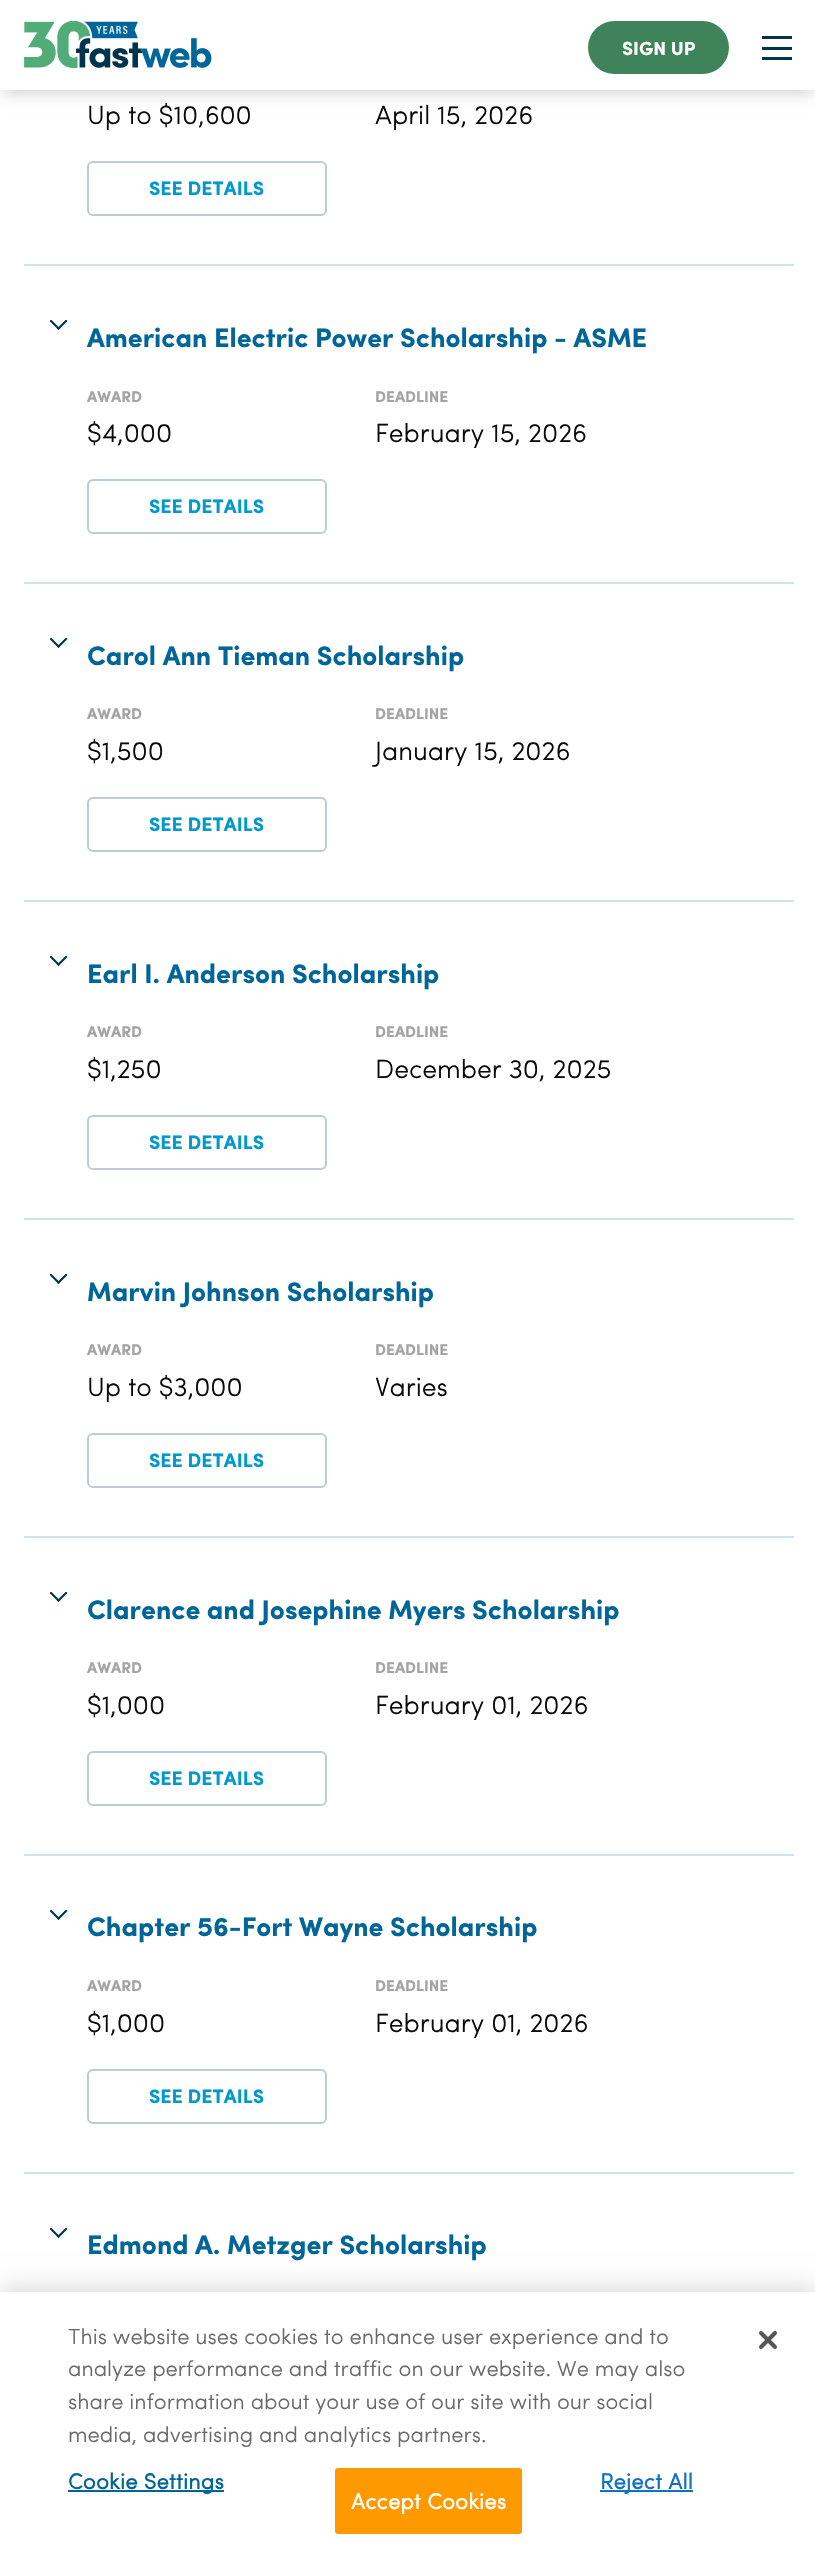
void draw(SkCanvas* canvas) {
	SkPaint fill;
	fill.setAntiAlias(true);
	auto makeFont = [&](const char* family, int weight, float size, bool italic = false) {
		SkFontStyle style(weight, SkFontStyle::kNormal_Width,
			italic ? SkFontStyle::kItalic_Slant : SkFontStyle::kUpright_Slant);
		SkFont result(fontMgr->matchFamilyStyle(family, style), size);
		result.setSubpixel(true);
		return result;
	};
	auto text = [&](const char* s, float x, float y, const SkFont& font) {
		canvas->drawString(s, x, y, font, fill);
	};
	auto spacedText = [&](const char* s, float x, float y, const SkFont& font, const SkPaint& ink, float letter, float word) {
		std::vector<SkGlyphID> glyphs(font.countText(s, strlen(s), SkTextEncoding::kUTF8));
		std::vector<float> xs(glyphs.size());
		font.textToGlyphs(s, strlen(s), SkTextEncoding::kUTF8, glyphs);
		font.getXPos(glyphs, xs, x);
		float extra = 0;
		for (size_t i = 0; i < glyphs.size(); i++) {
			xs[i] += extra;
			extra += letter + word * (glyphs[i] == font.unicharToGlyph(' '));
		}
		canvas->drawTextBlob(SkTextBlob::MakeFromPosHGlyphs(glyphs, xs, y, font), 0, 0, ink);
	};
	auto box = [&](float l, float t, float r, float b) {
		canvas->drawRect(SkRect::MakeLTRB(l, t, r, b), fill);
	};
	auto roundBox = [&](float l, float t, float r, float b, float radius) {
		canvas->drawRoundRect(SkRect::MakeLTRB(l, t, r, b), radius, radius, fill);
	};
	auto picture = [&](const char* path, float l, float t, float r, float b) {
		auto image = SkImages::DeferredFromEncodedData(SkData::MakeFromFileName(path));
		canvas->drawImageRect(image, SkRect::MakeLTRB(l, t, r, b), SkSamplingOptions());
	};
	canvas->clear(0xFFFFFFFF);
	fill.setColor(0x33000000);
	fill.setMaskFilter(SkMaskFilter::MakeBlur(kNormal_SkBlurStyle, 7.5f));
	canvas->drawRect(SkRect::MakeLTRB(3, 8, 813, 92), fill);
	fill.setMaskFilter(nullptr);
	fill.setColor(0xFFFFFFFF);
	box(0, 0, 815, 90);
	picture("image0.png", 24, 21, 212, 68);
	fill.setColor(0xFF3F835B);
	roundBox(588, 21, 729, 74, 26.5f);
	fill.setColor(0xFF00334C);
	box(762, 47, 792, 50);
	box(762, 36, 792, 39);
	box(762, 57, 792, 60);
	fill.setColor(0xFFD1E2ED);
	box(24, 264, 794, 266);
	fill.setStyle(SkPaint::kStroke_Style);
	fill.setStrokeWidth(2);
	fill.setColor(0xFFBCCBD5);
	canvas->drawRoundRect(SkRect::MakeLTRB(88, 162, 326, 215), 5, 5, fill);
	fill.setStyle(SkPaint::kFill_Style);
	fill.setColor(0xFFD1E2ED);
	box(24, 582, 794, 584);
	picture("image1.png", 50, 320, 68, 330);
	fill.setStyle(SkPaint::kStroke_Style);
	fill.setColor(0xFFBCCBD5);
	canvas->drawRoundRect(SkRect::MakeLTRB(88, 480, 326, 533), 5, 5, fill);
	fill.setStyle(SkPaint::kFill_Style);
	fill.setColor(0xFFD1E2ED);
	box(24, 900, 794, 902);
	picture("image1.png", 50, 638, 68, 648);
	fill.setStyle(SkPaint::kStroke_Style);
	fill.setColor(0xFFBCCBD5);
	canvas->drawRoundRect(SkRect::MakeLTRB(88, 798, 326, 851), 5, 5, fill);
	fill.setStyle(SkPaint::kFill_Style);
	fill.setColor(0xFFD1E2ED);
	box(24, 1218, 794, 1220);
	picture("image1.png", 50, 956, 68, 966);
	fill.setStyle(SkPaint::kStroke_Style);
	fill.setColor(0xFFBCCBD5);
	canvas->drawRoundRect(SkRect::MakeLTRB(88, 1116, 326, 1169), 5, 5, fill);
	fill.setStyle(SkPaint::kFill_Style);
	fill.setColor(0xFFD1E2ED);
	box(24, 1536, 794, 1538);
	picture("image1.png", 50, 1274, 68, 1284);
	fill.setStyle(SkPaint::kStroke_Style);
	fill.setColor(0xFFBCCBD5);
	canvas->drawRoundRect(SkRect::MakeLTRB(88, 1434, 326, 1487), 5, 5, fill);
	fill.setStyle(SkPaint::kFill_Style);
	fill.setColor(0xFFD1E2ED);
	box(24, 1854, 794, 1856);
	picture("image1.png", 50, 1592, 68, 1602);
	fill.setStyle(SkPaint::kStroke_Style);
	fill.setColor(0xFFBCCBD5);
	canvas->drawRoundRect(SkRect::MakeLTRB(88, 1752, 326, 1805), 5, 5, fill);
	fill.setStyle(SkPaint::kFill_Style);
	fill.setColor(0xFFD1E2ED);
	box(24, 2172, 794, 2174);
	picture("image1.png", 50, 1910, 68, 1920);
	fill.setStyle(SkPaint::kStroke_Style);
	fill.setColor(0xFFBCCBD5);
	canvas->drawRoundRect(SkRect::MakeLTRB(88, 2070, 326, 2123), 5, 5, fill);
	picture("image1.png", 50, 2228, 68, 2238);
	fill.setStyle(SkPaint::kFill_Style);
	fill.setColor(0x33000000);
	fill.setMaskFilter(SkMaskFilter::MakeBlur(kNormal_SkBlurStyle, 13.5f));
	canvas->drawRect(SkRect::MakeLTRB(0, 2292, 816, 2565), fill);
	fill.setMaskFilter(nullptr);
	fill.setColor(0xFFFFFFFF);
	box(0, 2292, 815, 2565);
	fill.setColor(0xFF006699);
	box(68, 2490, 224, 2492);
	fill.setColor(0xFF1371C3);
	box(600, 2490, 693, 2492);
	fill.setColor(0xFFFF9900);
	canvas->drawRoundRect(SkRect::MakeLTRB(336, 2469, 521, 2533), 2, 2, fill);
	fill.setStyle(SkPaint::kStroke_Style);
	canvas->drawRoundRect(SkRect::MakeLTRB(336, 2469, 521, 2533), 2, 2, fill);
	picture("image2.png", 759, 2331, 777, 2349);
	auto font1 = makeFont("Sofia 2", 400, 19);
	fill.setStyle(SkPaint::kFill_Style);
	fill.setColor(0xFFFFFFFF);
	text("SIGN UP", 622, 55, font1);
	auto font2 = makeFont("Sofia", 400, 26.5f);
	fill.setColor(0xFF0A0A0A);
	text("Up to $10,600", 87, 124, font2);
	text("April 15, 2026", 375, 124, font2);
	auto font3 = makeFont("Sofia 2", 400, 19.5f);
	fill.setColor(0xFF0099CC);
	text("SEE DETAILS", 149, 195, font3);
	auto font4 = makeFont("Sofia 2", 400, 27);
	fill.setColor(0xFF006699);
	text("American Electric Power Scholarship - ASME", 87, 347, font4);
	auto font5 = makeFont("Sofia 2", 400, 15.5f);
	fill.setColor(0xFFA4A4A4);
	text("AWARD", 87, 402, font5);
	fill.setColor(0xFF0A0A0A);
	text("$4,000", 87, 442, font2);
	fill.setColor(0xFFA4A4A4);
	text("DEADLINE", 375, 402, font5);
	fill.setColor(0xFF0A0A0A);
	text("February 15, 2026", 375, 442, font2);
	fill.setColor(0xFF0099CC);
	text("SEE DETAILS", 149, 513, font3);
	fill.setColor(0xFF006699);
	text("Carol Ann Tieman Scholarship", 87, 665, font4);
	fill.setColor(0xFFA4A4A4);
	text("AWARD", 87, 719, font5);
	fill.setColor(0xFF0A0A0A);
	text("$1,500", 87, 760, font2);
	fill.setColor(0xFFA4A4A4);
	text("DEADLINE", 375, 719, font5);
	fill.setColor(0xFF0A0A0A);
	text("January 15, 2026", 375, 760, font2);
	fill.setColor(0xFF0099CC);
	text("SEE DETAILS", 149, 831, font3);
	fill.setColor(0xFF006699);
	text("Earl I. Anderson Scholarship", 87, 983, font4);
	fill.setColor(0xFFA4A4A4);
	text("AWARD", 87, 1037, font5);
	fill.setColor(0xFF0A0A0A);
	text("$1,250", 87, 1078, font2);
	fill.setColor(0xFFA4A4A4);
	text("DEADLINE", 375, 1037, font5);
	fill.setColor(0xFF0A0A0A);
	text("December 30, 2025", 375, 1078, font2);
	fill.setColor(0xFF0099CC);
	text("SEE DETAILS", 149, 1149, font3);
	fill.setColor(0xFF006699);
	text("Marvin Johnson Scholarship", 87, 1301, font4);
	fill.setColor(0xFFA4A4A4);
	text("AWARD", 87, 1355, font5);
	fill.setColor(0xFF0A0A0A);
	text("Up to $3,000", 87, 1396, font2);
	fill.setColor(0xFFA4A4A4);
	text("DEADLINE", 375, 1355, font5);
	fill.setColor(0xFF0A0A0A);
	text("Varies", 375, 1396, font2);
	fill.setColor(0xFF0099CC);
	text("SEE DETAILS", 149, 1467, font3);
	fill.setColor(0xFF006699);
	text("Clarence and Josephine Myers Scholarship", 87, 1619, font4);
	fill.setColor(0xFFA4A4A4);
	text("AWARD", 87, 1673, font5);
	fill.setColor(0xFF0A0A0A);
	text("$1,000", 87, 1714, font2);
	fill.setColor(0xFFA4A4A4);
	text("DEADLINE", 375, 1673, font5);
	fill.setColor(0xFF0A0A0A);
	text("February 01, 2026", 375, 1714, font2);
	fill.setColor(0xFF0099CC);
	text("SEE DETAILS", 149, 1785, font3);
	fill.setColor(0xFF006699);
	text("Chapter 56-Fort Wayne Scholarship", 87, 1936, font4);
	fill.setColor(0xFFA4A4A4);
	text("AWARD", 87, 1991, font5);
	fill.setColor(0xFF0A0A0A);
	text("$1,000", 87, 2032, font2);
	fill.setColor(0xFFA4A4A4);
	text("DEADLINE", 375, 1991, font5);
	fill.setColor(0xFF0A0A0A);
	text("February 01, 2026", 375, 2032, font2);
	fill.setColor(0xFF0099CC);
	text("SEE DETAILS", 149, 2103, font3);
	fill.setColor(0xFF006699);
	text("Edmond A. Metzger Scholarship", 87, 2254, font4);
	auto font6 = makeFont("Sofia", 400, 21.95f);
	fill.setColor(0xFF696969);
	text("This website uses cookies to enhance user experience and to", 68, 2344, font6);
	text("analyze performance and traffic on our website. We may also", 68, 2376, font6);
	text("share information about your use of our site with our social", 68, 2409, font6);
	text("media, advertising and analytics partners.", 68, 2442, font6);
	auto font7 = makeFont("Sofia", 700, 21.95f);
	fill.setColor(0xFF006699);
	spacedText("Cookie Settings", 68, 2489, font7, fill, 0.25f, 0);
	fill.setColor(0xFF1371C3);
	spacedText("Reject All", 600, 2489, font7, fill, 0.25f, 0);
	fill.setColor(0xFFFFFFFF);
	spacedText("Accept Cookies", 351, 2509, font7, fill, 0.25f, 0);
}
